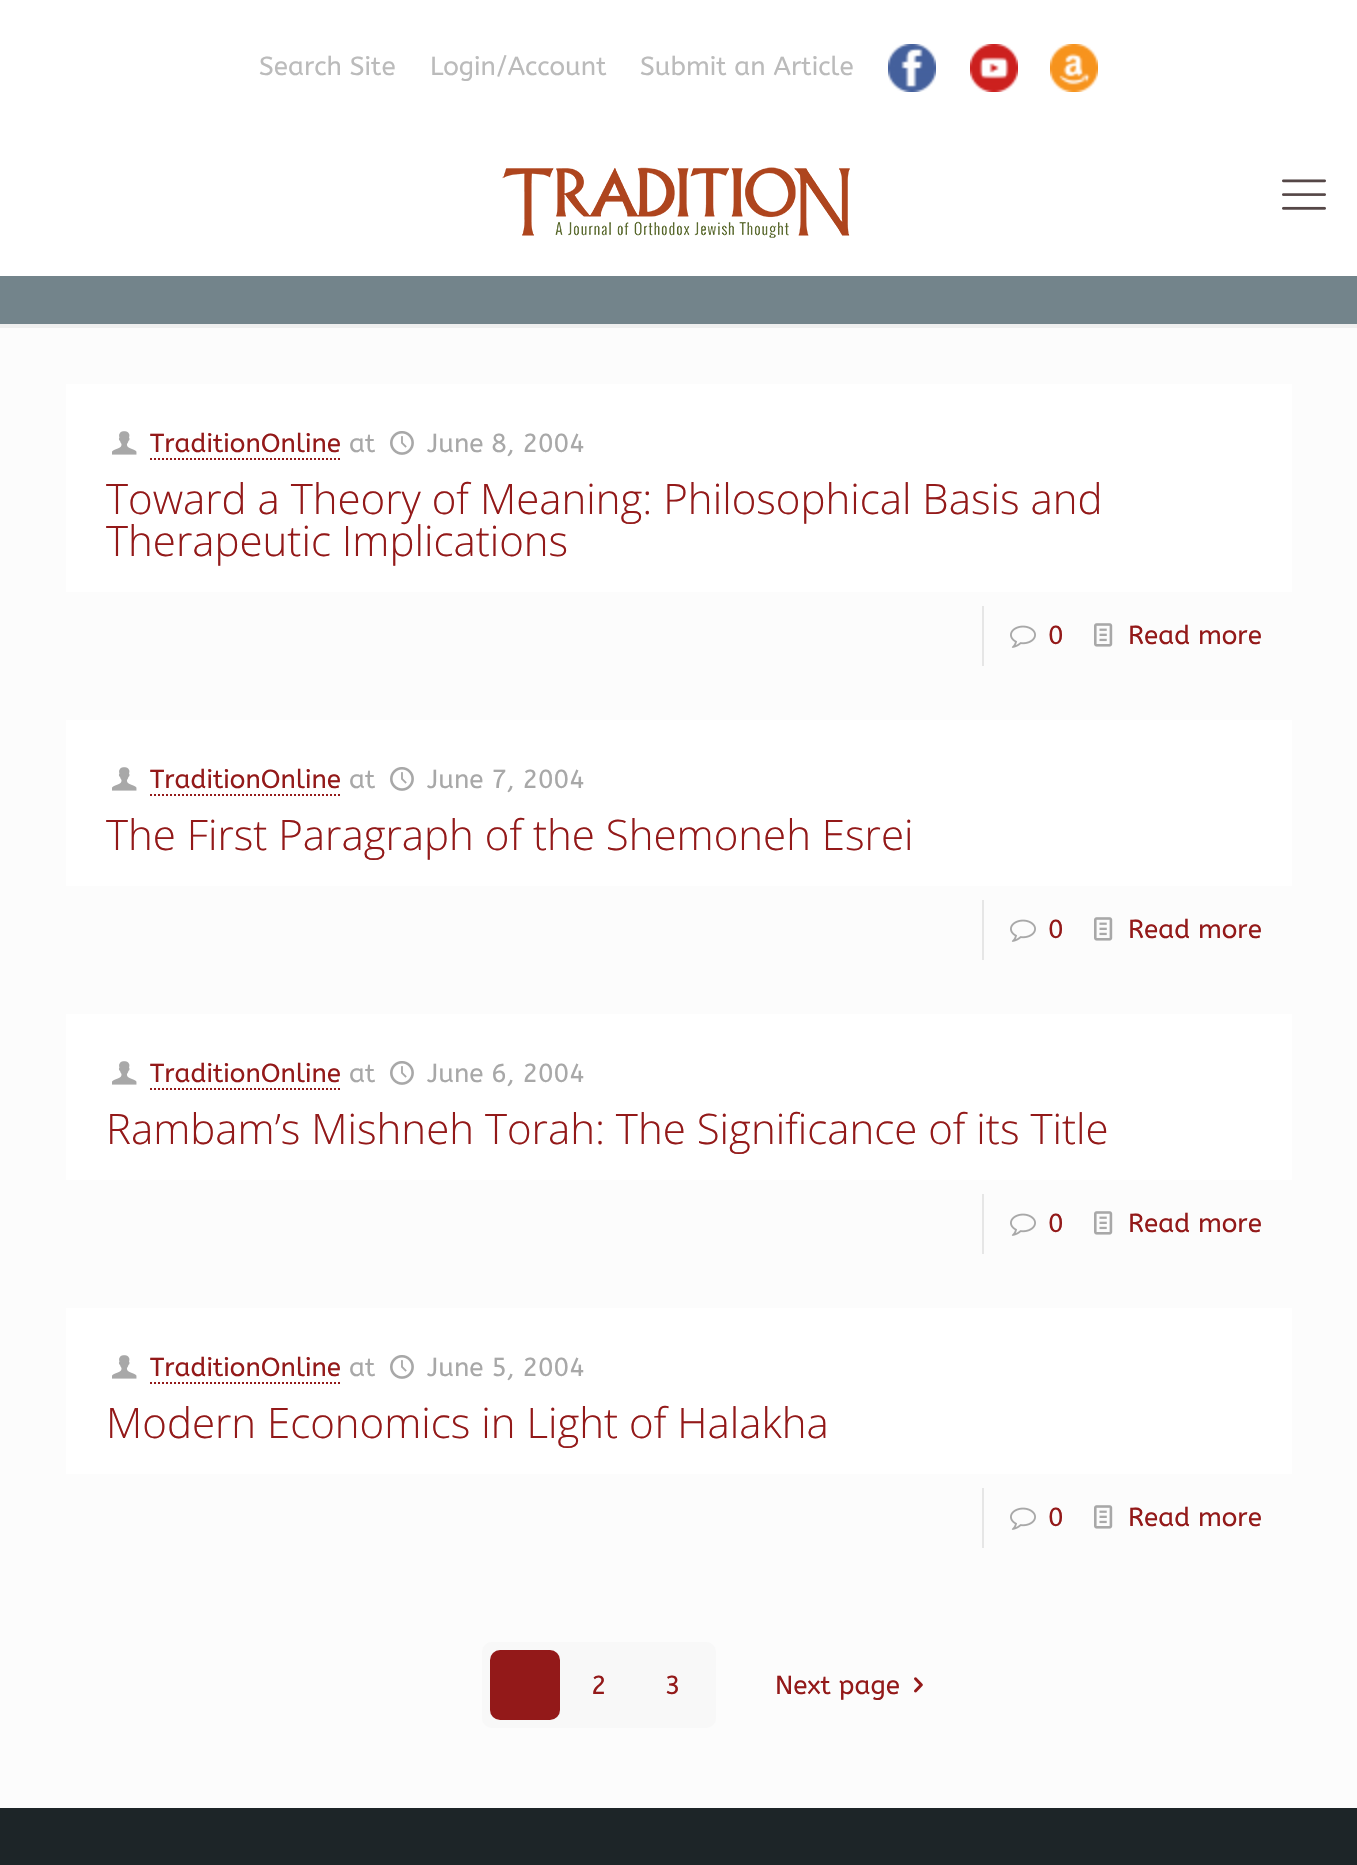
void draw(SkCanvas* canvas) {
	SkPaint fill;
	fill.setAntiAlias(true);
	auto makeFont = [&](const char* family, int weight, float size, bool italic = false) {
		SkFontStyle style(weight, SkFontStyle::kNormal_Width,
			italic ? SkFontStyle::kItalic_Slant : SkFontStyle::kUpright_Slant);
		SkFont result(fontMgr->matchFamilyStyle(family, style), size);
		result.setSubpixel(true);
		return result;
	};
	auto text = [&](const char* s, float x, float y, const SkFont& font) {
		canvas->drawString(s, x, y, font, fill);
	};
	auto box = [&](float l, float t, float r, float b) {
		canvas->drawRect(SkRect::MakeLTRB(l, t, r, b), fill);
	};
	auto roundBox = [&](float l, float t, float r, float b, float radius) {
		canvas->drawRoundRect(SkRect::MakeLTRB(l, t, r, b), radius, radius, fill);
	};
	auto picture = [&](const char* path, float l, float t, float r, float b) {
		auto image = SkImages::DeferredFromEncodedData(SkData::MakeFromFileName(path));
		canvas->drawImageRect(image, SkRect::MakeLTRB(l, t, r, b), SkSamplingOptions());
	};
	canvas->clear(0xFFFCFCFC);
	fill.setColor(0xFFFFFFFF);
	box(0, 0, 1357, 276);
	picture("image0.png", 888, 44, 936, 92);
	picture("image1.png", 970, 44, 1018, 92);
	picture("image2.png", 1050, 44, 1098, 92);
	picture("image3.png", 502, 167, 850, 238);
	picture("image4.png", 1282, 179, 1326, 210);
	fill.setColor(0xFF73848B);
	box(0, 276, 1357, 324);
	fill.setColor(0xFFEFEFEF);
	box(0, 324, 1357, 328);
	fill.setColor(0xFFFFFFFF);
	box(66, 384, 1292, 592);
	picture("image5.png", 112, 431, 137, 455);
	fill.setStyle(SkPaint::kStroke_Style);
	fill.setStrokeWidth(2);
	fill.setColor(0xFF931919);
	fill.setPathEffect(SkDashPathEffect::Make({{2, 2}}, 0));
	canvas->drawPath(SkPathBuilder().moveTo(150, 459).lineTo(342, 459).detach(), fill);
	fill.setPathEffect(nullptr);
	picture("image6.png", 390, 431, 414, 455);
	fill.setStyle(SkPaint::kFill_Style);
	fill.setColor(0xFFE6E6E6);
	box(982, 606, 984, 666);
	picture("image7.png", 1010, 625, 1036, 648);
	picture("image8.png", 1094, 623, 1113, 647);
	fill.setColor(0xFFFFFFFF);
	box(66, 720, 1292, 886);
	picture("image5.png", 112, 767, 137, 791);
	fill.setStyle(SkPaint::kStroke_Style);
	fill.setColor(0xFF931919);
	fill.setPathEffect(SkDashPathEffect::Make({{2, 2}}, 0));
	canvas->drawPath(SkPathBuilder().moveTo(150, 795).lineTo(342, 795).detach(), fill);
	fill.setPathEffect(nullptr);
	picture("image6.png", 390, 767, 414, 791);
	fill.setStyle(SkPaint::kFill_Style);
	fill.setColor(0xFFE6E6E6);
	box(982, 900, 984, 960);
	picture("image7.png", 1010, 919, 1036, 942);
	picture("image8.png", 1094, 917, 1113, 941);
	fill.setColor(0xFFFFFFFF);
	box(66, 1014, 1292, 1180);
	picture("image5.png", 112, 1061, 137, 1085);
	fill.setStyle(SkPaint::kStroke_Style);
	fill.setColor(0xFF931919);
	fill.setPathEffect(SkDashPathEffect::Make({{2, 2}}, 0));
	canvas->drawPath(SkPathBuilder().moveTo(150, 1089).lineTo(342, 1089).detach(), fill);
	fill.setPathEffect(nullptr);
	picture("image6.png", 390, 1061, 414, 1085);
	fill.setStyle(SkPaint::kFill_Style);
	fill.setColor(0xFFE6E6E6);
	box(982, 1194, 984, 1254);
	picture("image7.png", 1010, 1213, 1036, 1236);
	picture("image8.png", 1094, 1211, 1113, 1235);
	fill.setColor(0xFFFFFFFF);
	box(66, 1308, 1292, 1474);
	picture("image5.png", 112, 1355, 137, 1379);
	fill.setStyle(SkPaint::kStroke_Style);
	fill.setColor(0xFF931919);
	fill.setPathEffect(SkDashPathEffect::Make({{2, 2}}, 0));
	canvas->drawPath(SkPathBuilder().moveTo(150, 1383).lineTo(342, 1383).detach(), fill);
	fill.setPathEffect(nullptr);
	picture("image6.png", 390, 1355, 414, 1379);
	fill.setStyle(SkPaint::kFill_Style);
	fill.setColor(0xFFE6E6E6);
	box(982, 1488, 984, 1548);
	picture("image7.png", 1010, 1507, 1036, 1530);
	picture("image8.png", 1094, 1505, 1113, 1529);
	fill.setColor(0xFFF8F8F8);
	roundBox(482, 1642, 716, 1728, 10);
	fill.setColor(0xFF931919);
	roundBox(490, 1650, 560, 1720, 10);
	picture("image9.png", 914, 1677, 923, 1693);
	fill.setColor(0xFF1D2528);
	box(0, 1808, 1357, 1865);
	auto font1 = makeFont("ABeeZee", 400, 26);
	fill.setColor(0xFFBBBBBB);
	text("Search Site", 259, 75, font1);
	text("Login/Account", 430, 75, font1);
	text("Submit an Article", 640, 75, font1);
	fill.setColor(0xFF931919);
	text("TraditionOnline", 150, 452, font1);
	fill.setColor(0xFFA8A8A8);
	text("at", 349, 452, font1);
	text("June 8, 2004", 427, 452, font1);
	auto font2 = makeFont("Open Sans", 300, 42);
	fill.setColor(0xFF931919);
	text("Toward a Theory of Meaning: Philosophical Basis and", 106, 514, font2);
	text("Therapeutic Implications", 106, 556, font2);
	text("0", 1048, 644, font1);
	text("Read more", 1128, 644, font1);
	text("TraditionOnline", 150, 788, font1);
	fill.setColor(0xFFA8A8A8);
	text("at", 349, 788, font1);
	text("June 7, 2004", 427, 788, font1);
	fill.setColor(0xFF931919);
	text("The First Paragraph of the Shemoneh Esrei", 106, 850, font2);
	text("0", 1048, 938, font1);
	text("Read more", 1128, 938, font1);
	text("TraditionOnline", 150, 1082, font1);
	fill.setColor(0xFFA8A8A8);
	text("at", 349, 1082, font1);
	text("June 6, 2004", 427, 1082, font1);
	fill.setColor(0xFF931919);
	text("Rambam’s Mishneh Torah: The Significance of its Title", 106, 1144, font2);
	text("0", 1048, 1232, font1);
	text("Read more", 1128, 1232, font1);
	text("TraditionOnline", 150, 1376, font1);
	fill.setColor(0xFFA8A8A8);
	text("at", 349, 1376, font1);
	text("June 5, 2004", 427, 1376, font1);
	fill.setColor(0xFF931919);
	text("Modern Economics in Light of Halakha", 106, 1438, font2);
	text("0", 1048, 1526, font1);
	text("Read more", 1128, 1526, font1);
	text("2", 591, 1694, font1);
	text("3", 665, 1694, font1);
	text("Next page", 775, 1694, font1);
}
